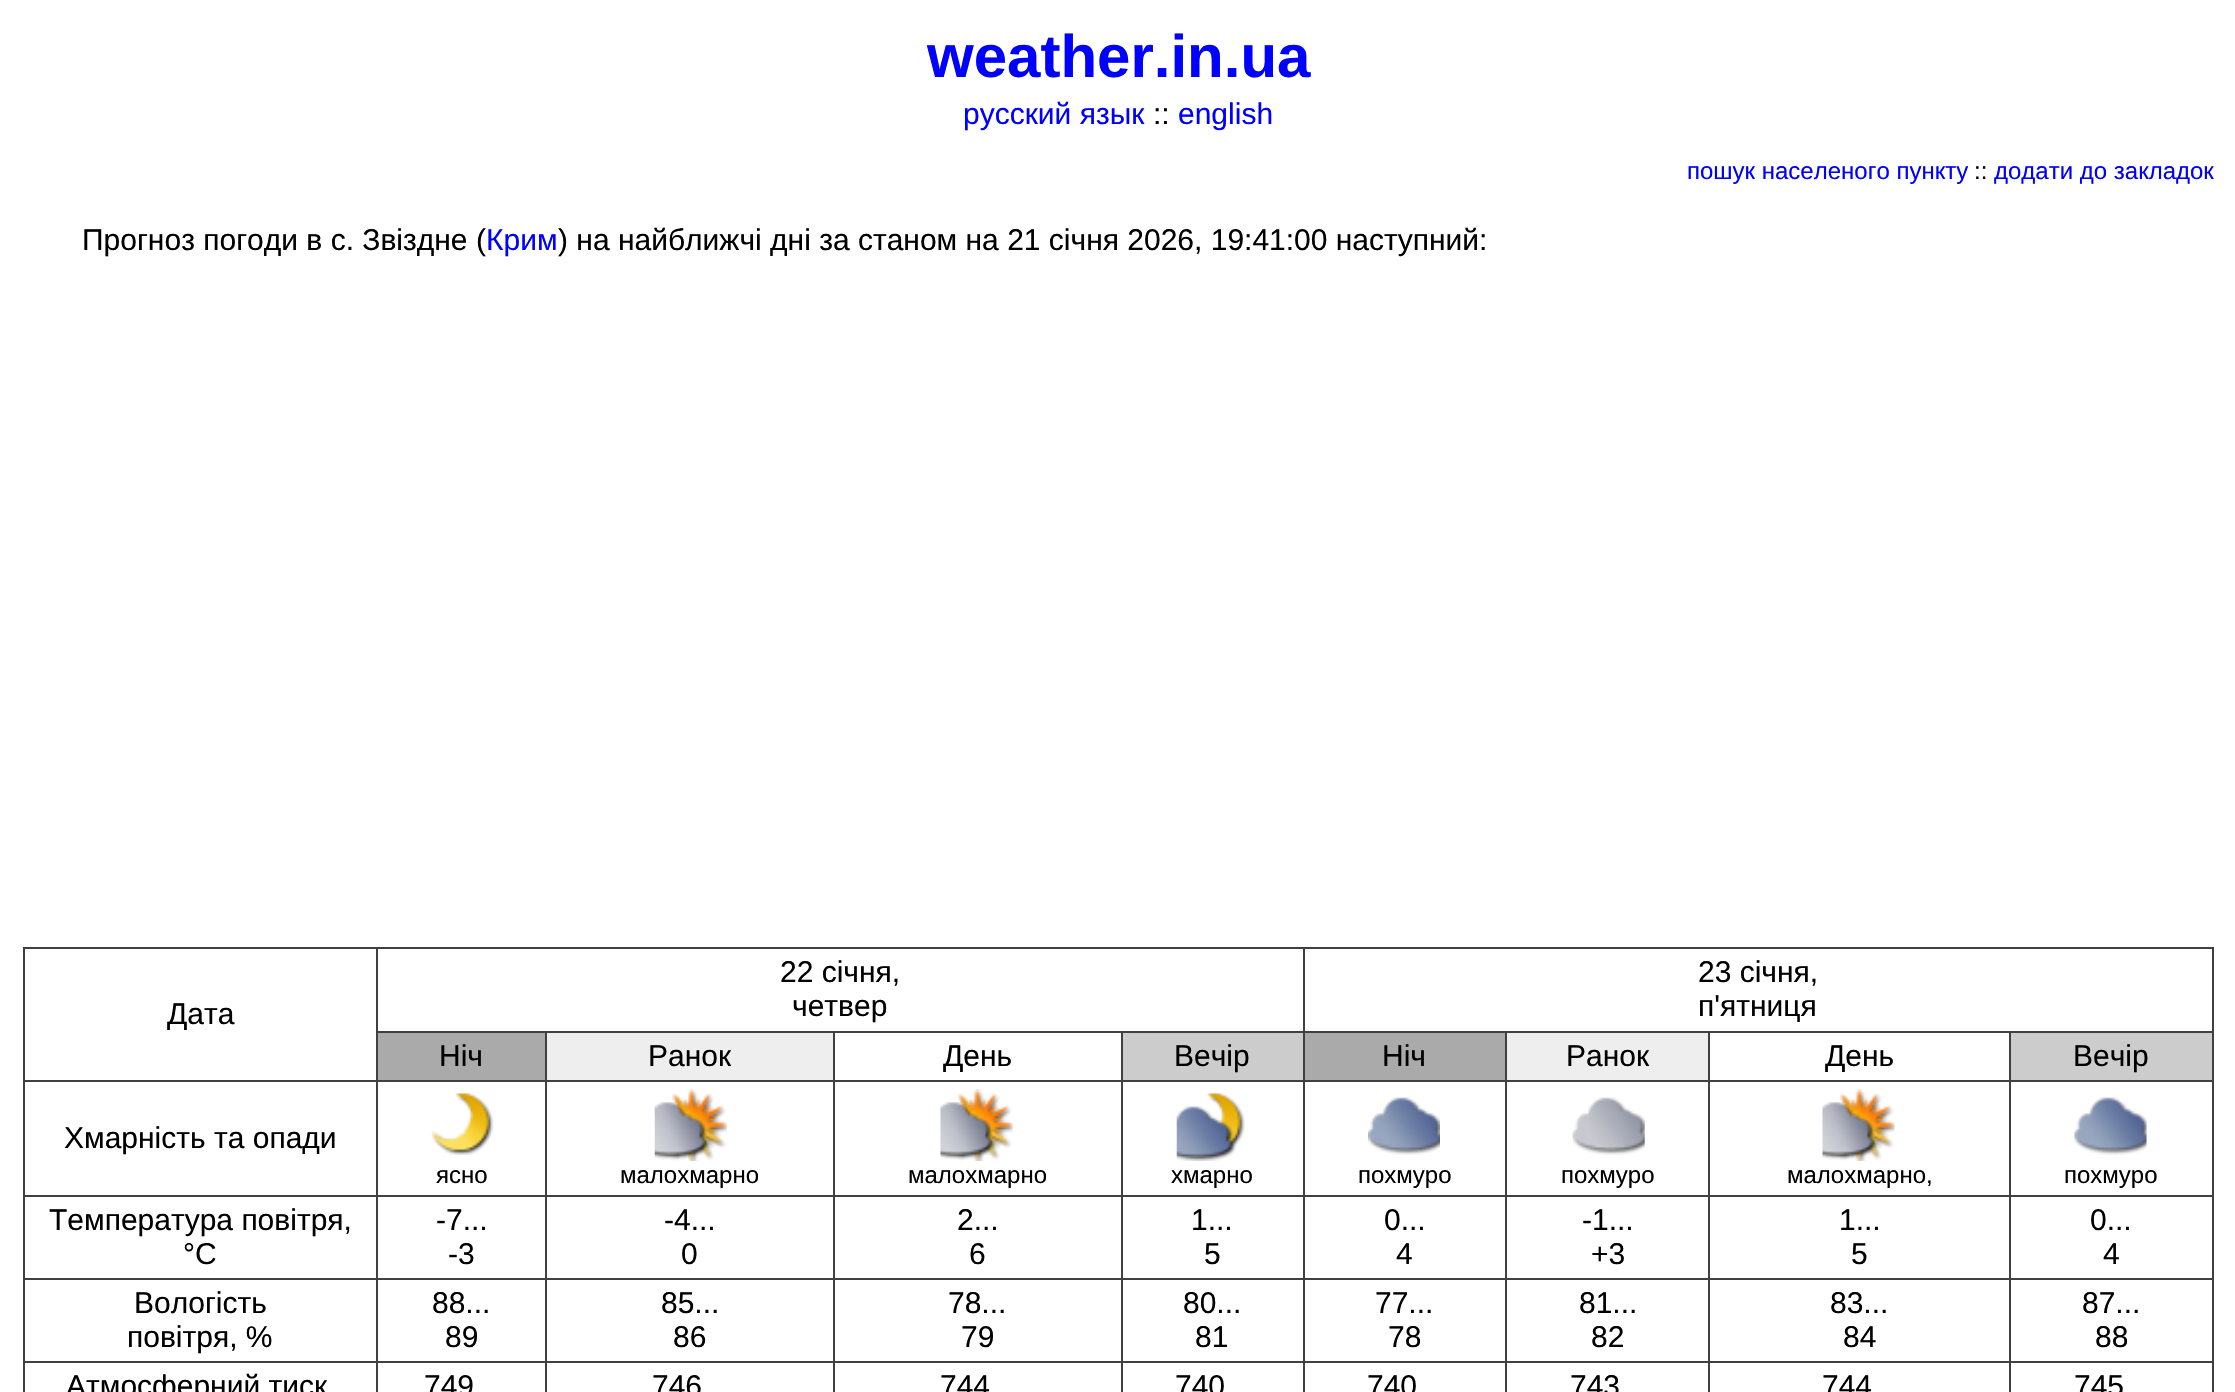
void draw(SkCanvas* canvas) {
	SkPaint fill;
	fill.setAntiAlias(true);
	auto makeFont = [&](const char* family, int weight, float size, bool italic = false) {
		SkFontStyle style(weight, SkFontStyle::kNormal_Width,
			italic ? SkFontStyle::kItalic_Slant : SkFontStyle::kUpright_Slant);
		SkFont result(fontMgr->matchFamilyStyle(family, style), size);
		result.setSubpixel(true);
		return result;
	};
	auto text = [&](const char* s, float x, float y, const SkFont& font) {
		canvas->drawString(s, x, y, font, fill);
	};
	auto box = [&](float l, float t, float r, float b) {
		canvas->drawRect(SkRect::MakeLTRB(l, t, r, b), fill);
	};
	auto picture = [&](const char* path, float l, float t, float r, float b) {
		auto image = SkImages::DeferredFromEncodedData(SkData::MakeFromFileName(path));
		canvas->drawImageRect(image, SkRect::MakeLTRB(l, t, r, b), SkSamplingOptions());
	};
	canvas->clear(0xFFFFFFFF);
	fill.setColor(0xFF404040);
	box(1303, 947, 2214, 949);
	box(2009, 1031, 2214, 1033);
	box(2009, 1080, 2214, 1082);
	box(2009, 1195, 2214, 1197);
	box(2009, 1278, 2214, 1280);
	box(2009, 1361, 2214, 1363);
	box(2009, 1361, 2011, 1392);
	box(1708, 1361, 2012, 1363);
	box(2009, 1278, 2011, 1364);
	box(1708, 1278, 2012, 1280);
	box(2009, 1195, 2011, 1280);
	box(1708, 1195, 2012, 1197);
	box(2009, 1080, 2011, 1197);
	box(1708, 1080, 2012, 1082);
	box(2009, 1031, 2011, 1082);
	box(1708, 1031, 2012, 1033);
	box(1708, 1361, 1710, 1392);
	box(1505, 1361, 1710, 1363);
	box(1708, 1278, 1710, 1364);
	box(1505, 1278, 1710, 1280);
	box(1708, 1195, 1710, 1280);
	box(1505, 1195, 1710, 1197);
	box(1708, 1080, 1710, 1197);
	box(1505, 1080, 1710, 1082);
	box(1708, 1031, 1710, 1082);
	box(1505, 1031, 1710, 1033);
	box(1505, 1361, 1507, 1392);
	box(1303, 1361, 1508, 1363);
	box(1505, 1278, 1507, 1364);
	box(1303, 1278, 1508, 1280);
	box(1505, 1195, 1507, 1280);
	box(1303, 1195, 1508, 1197);
	box(1505, 1080, 1507, 1197);
	box(1303, 1080, 1508, 1082);
	box(1505, 1031, 1507, 1082);
	box(1303, 1031, 1508, 1033);
	box(1303, 1361, 1305, 1392);
	box(1121, 1361, 1305, 1363);
	box(1303, 1278, 1305, 1364);
	box(1121, 1278, 1305, 1280);
	box(1303, 1195, 1305, 1280);
	box(1121, 1195, 1305, 1197);
	box(1303, 1080, 1305, 1197);
	box(1121, 1080, 1305, 1082);
	box(1303, 1031, 1305, 1082);
	box(1121, 1031, 1305, 1033);
	box(1303, 947, 1305, 1033);
	box(376, 947, 1305, 949);
	box(1121, 1361, 1123, 1392);
	box(833, 1361, 1123, 1363);
	box(1121, 1278, 1123, 1364);
	box(833, 1278, 1123, 1280);
	box(1121, 1195, 1123, 1280);
	box(833, 1195, 1123, 1197);
	box(1121, 1080, 1123, 1197);
	box(833, 1080, 1123, 1082);
	box(1121, 1031, 1123, 1082);
	box(833, 1031, 1123, 1033);
	box(833, 1361, 835, 1392);
	box(545, 1361, 835, 1363);
	box(833, 1278, 835, 1364);
	box(545, 1278, 835, 1280);
	box(833, 1195, 835, 1280);
	box(545, 1195, 835, 1197);
	box(833, 1080, 835, 1197);
	box(545, 1080, 835, 1082);
	box(833, 1031, 835, 1082);
	box(545, 1031, 835, 1033);
	box(545, 1361, 547, 1392);
	box(376, 1361, 547, 1363);
	box(545, 1278, 547, 1364);
	box(376, 1278, 547, 1280);
	box(545, 1195, 547, 1280);
	box(376, 1195, 547, 1197);
	box(545, 1080, 547, 1197);
	box(376, 1080, 547, 1082);
	box(545, 1031, 547, 1082);
	box(376, 1031, 547, 1033);
	box(376, 1361, 378, 1392);
	box(23, 1361, 378, 1363);
	box(376, 1278, 378, 1364);
	box(23, 1278, 378, 1280);
	box(376, 1195, 378, 1280);
	box(23, 1195, 378, 1197);
	box(376, 1080, 378, 1197);
	box(23, 1080, 378, 1082);
	box(376, 1031, 378, 1082);
	box(376, 947, 378, 1033);
	box(23, 947, 378, 949);
	box(23, 1361, 25, 1392);
	box(23, 1278, 25, 1364);
	box(23, 1195, 25, 1280);
	box(23, 1080, 25, 1197);
	box(23, 947, 25, 1082);
	box(2212, 1361, 2214, 1392);
	box(2212, 1278, 2214, 1364);
	box(2212, 1195, 2214, 1280);
	box(2212, 1080, 2214, 1197);
	box(2212, 1031, 2214, 1082);
	box(2212, 947, 2214, 1033);
	fill.setColor(0xFFAAAAAA);
	box(378, 1033, 545, 1080);
	fill.setColor(0xFFEEEEEE);
	box(547, 1033, 833, 1080);
	fill.setColor(0xFFCCCCCC);
	box(1123, 1033, 1303, 1080);
	fill.setColor(0xFFAAAAAA);
	box(1305, 1033, 1505, 1080);
	fill.setColor(0xFFEEEEEE);
	box(1507, 1033, 1708, 1080);
	fill.setColor(0xFFCCCCCC);
	box(2011, 1033, 2212, 1080);
	picture("image0.png", 431, 1093, 494, 1155);
	picture("image1.png", 654, 1089, 727, 1161);
	picture("image2.png", 940, 1089, 1013, 1161);
	picture("image3.png", 1176, 1093, 1245, 1161);
	picture("image4.png", 1368, 1097, 1440, 1155);
	picture("image5.png", 1572, 1097, 1645, 1155);
	picture("image6.png", 1822, 1089, 1895, 1161);
	picture("image7.png", 2074, 1097, 2147, 1155);
	auto font1 = makeFont("Liberation Sans", 700, 60);
	fill.setColor(0xFF0000FF);
	text("weather.in.ua", 927, 77, font1);
	auto font2 = makeFont("Liberation Sans", 400, 30);
	text("русский язык", 963, 124, font2);
	fill.setColor(0xFF000000);
	text("::", 1153, 124, font2);
	fill.setColor(0xFF0000FF);
	text("english", 1178, 124, font2);
	auto font3 = makeFont("Liberation Sans", 400, 24);
	text("пошук населеного пункту", 1687, 179, font3);
	fill.setColor(0xFF000000);
	text("::", 1974, 179, font3);
	fill.setColor(0xFF0000FF);
	text("додати до закладок", 1994, 179, font3);
	fill.setColor(0xFF000000);
	text("Прогноз погоди в с. Звіздне (", 82, 250, font2);
	fill.setColor(0xFF0000FF);
	text("Крим", 486, 250, font2);
	fill.setColor(0xFF000000);
	text(") на найближчі дні за станом на 21 січня 2026, 19:41:00 наступний:", 558, 250, font2);
	text("Дата", 167, 1024, font2);
	text("22 січня,", 780, 982, font2);
	text("четвер", 792, 1016, font2);
	text("23 січня,", 1698, 982, font2);
	text("п'ятниця", 1698, 1016, font2);
	text("Ніч", 439, 1066, font2);
	text("Ранок", 648, 1066, font2);
	text("День", 943, 1066, font2);
	text("Вечір", 1174, 1066, font2);
	text("Ніч", 1382, 1066, font2);
	text("Ранок", 1566, 1066, font2);
	text("День", 1825, 1066, font2);
	text("Вечір", 2073, 1066, font2);
	text("Хмарність та опади", 64, 1148, font2);
	text("ясно", 436, 1183, font3);
	text("малохмарно", 620, 1183, font3);
	text("малохмарно", 908, 1183, font3);
	text("хмарно", 1171, 1183, font3);
	text("похмуро", 1358, 1183, font3);
	text("похмуро", 1561, 1183, font3);
	text("малохмарно,", 1787, 1183, font3);
	text("похмуро", 2064, 1183, font3);
	text("Температура повітря,", 49, 1230, font2);
	text("°C", 183, 1264, font2);
	text("-7...", 436, 1230, font2);
	text("-3", 448, 1264, font2);
	text("-4...", 664, 1230, font2);
	text("0", 681, 1264, font2);
	text("2...", 957, 1230, font2);
	text("6", 969, 1264, font2);
	text("1...", 1191, 1230, font2);
	text("5", 1204, 1264, font2);
	text("0...", 1384, 1230, font2);
	text("4", 1396, 1264, font2);
	text("-1...", 1582, 1230, font2);
	text("+3", 1591, 1264, font2);
	text("1...", 1839, 1230, font2);
	text("5", 1851, 1264, font2);
	text("0...", 2090, 1230, font2);
	text("4", 2103, 1264, font2);
	text("Вологість", 134, 1313, font2);
	text("повітря, %", 127, 1347, font2);
	text("88...", 432, 1313, font2);
	text("89", 445, 1347, font2);
	text("85...", 661, 1313, font2);
	text("86", 673, 1347, font2);
	text("78...", 948, 1313, font2);
	text("79", 961, 1347, font2);
	text("80...", 1183, 1313, font2);
	text("81", 1195, 1347, font2);
	text("77...", 1375, 1313, font2);
	text("78", 1388, 1347, font2);
	text("81...", 1579, 1313, font2);
	text("82", 1591, 1347, font2);
	text("83...", 1830, 1313, font2);
	text("84", 1843, 1347, font2);
	text("87...", 2082, 1313, font2);
	text("88", 2095, 1347, font2);
	text("Атмосферний тиск", 66, 1396, font2);
	text("749", 424, 1396, font2);
	text("746", 652, 1396, font2);
	text("744", 940, 1396, font2);
	text("740", 1175, 1396, font2);
	text("740", 1367, 1396, font2);
	text("743", 1570, 1396, font2);
	text("744", 1822, 1396, font2);
	text("745", 2074, 1396, font2);
}
